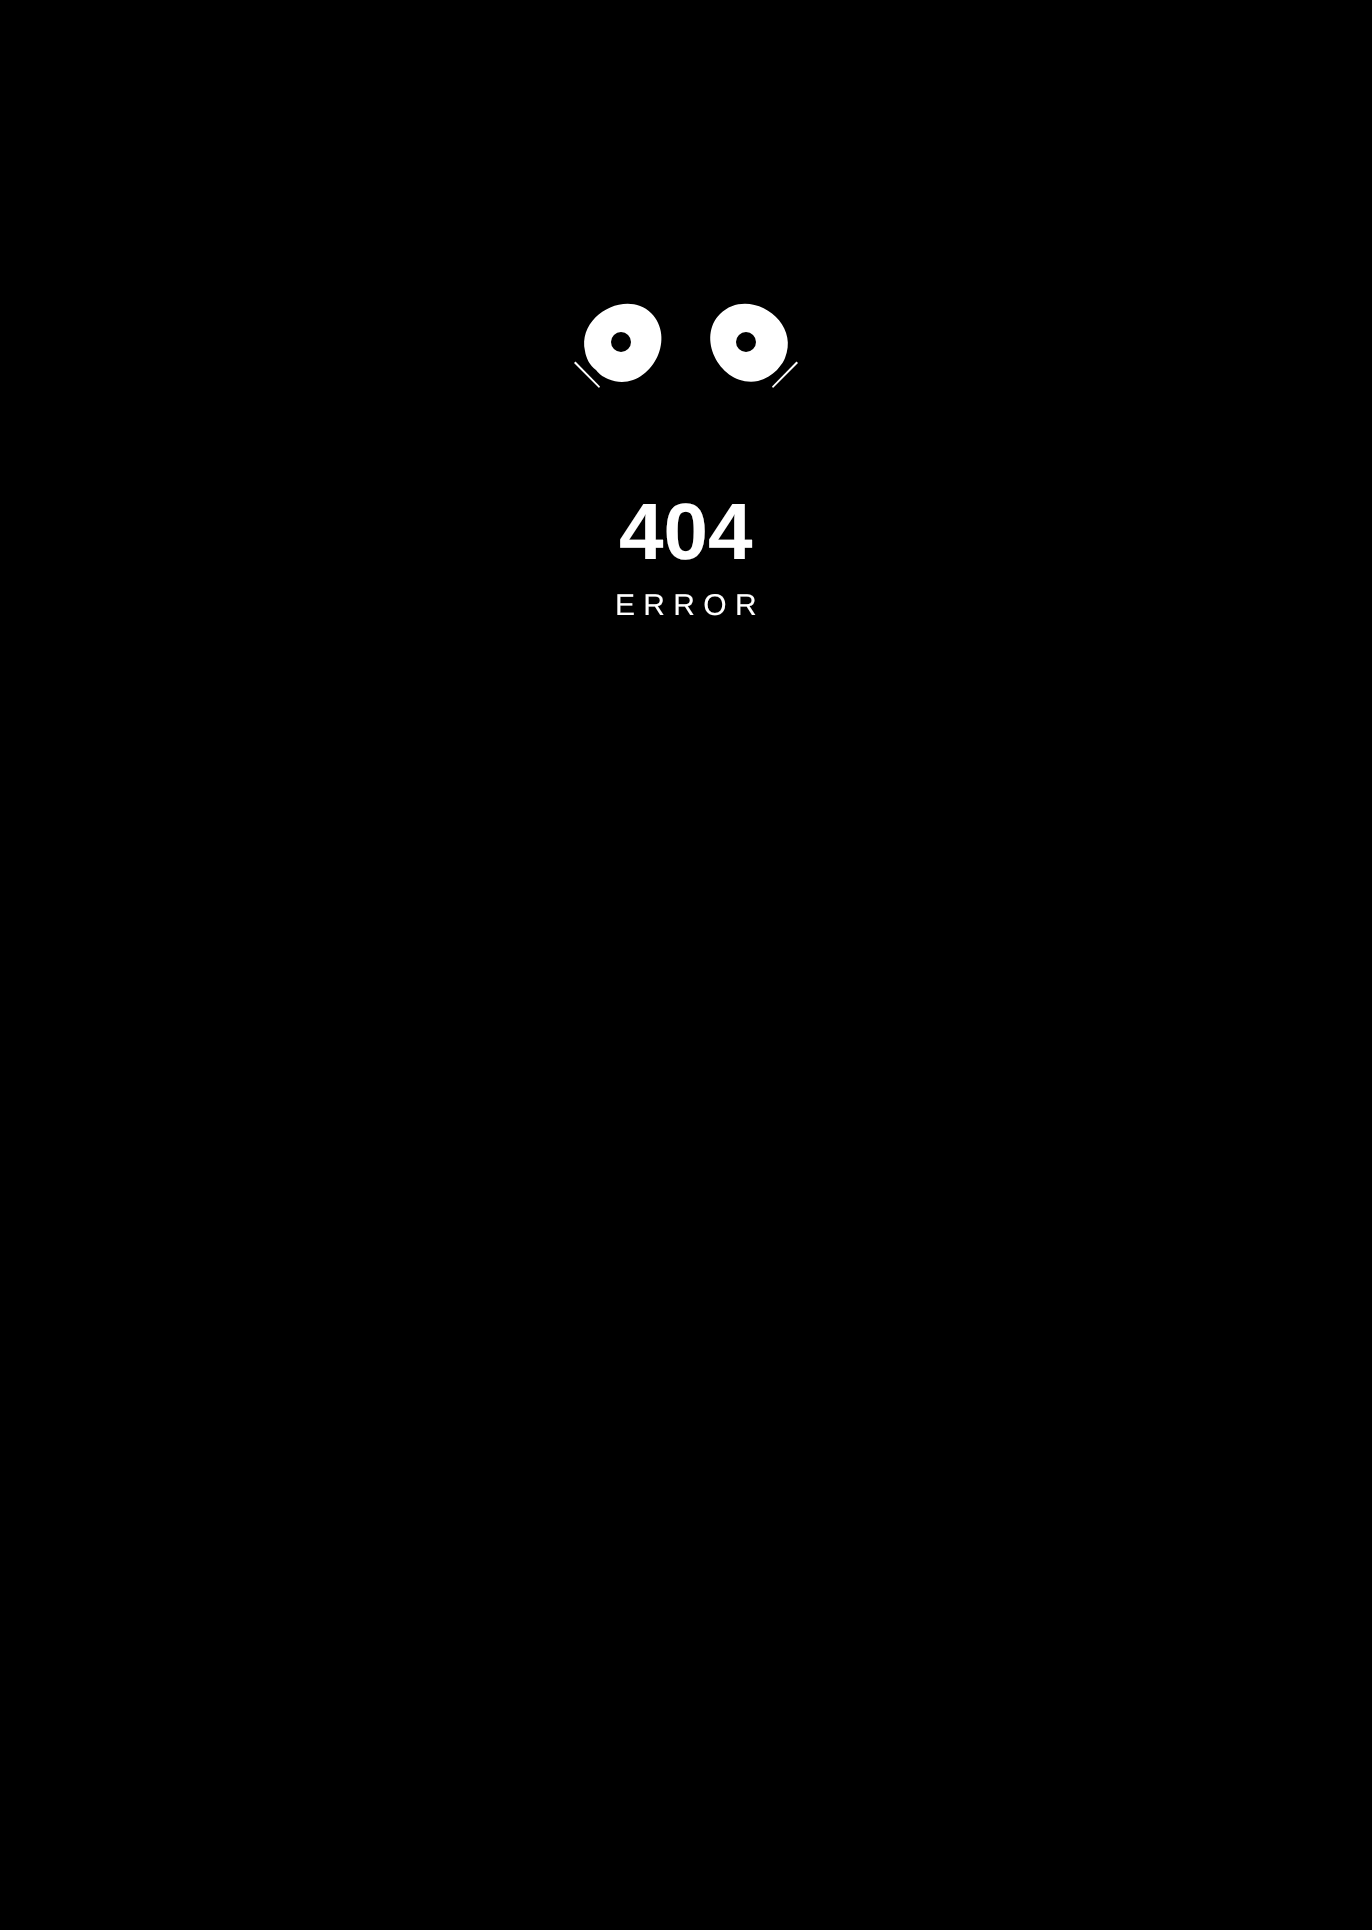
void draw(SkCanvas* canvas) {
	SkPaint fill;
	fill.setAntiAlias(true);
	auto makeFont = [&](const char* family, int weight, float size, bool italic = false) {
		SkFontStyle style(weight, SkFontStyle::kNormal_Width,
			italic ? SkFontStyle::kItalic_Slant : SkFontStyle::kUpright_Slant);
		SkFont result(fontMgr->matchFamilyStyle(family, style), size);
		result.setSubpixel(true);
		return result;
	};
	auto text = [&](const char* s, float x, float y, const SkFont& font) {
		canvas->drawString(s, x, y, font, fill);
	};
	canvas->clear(0xFF000000);
	fill.setColor(0xFFFFFFFF);
	canvas->drawPath(SkPathBuilder().moveTo(651, 313).cubicTo(679, 341, 646, 395, 608, 379).cubicTo(602, 376, 600, 375, 596, 370).cubicTo(590, 366, 586, 358, 585, 351).cubicTo(577, 315, 627, 289, 651, 313).close().detach(), fill);
	canvas->drawPath(SkPathBuilder().moveTo(575.5f, 361.5f).lineTo(600, 386.5f).lineTo(599, 388).lineTo(574, 363).close().detach(), fill);
	canvas->drawPath(SkPathBuilder().moveTo(720, 314).cubicTo(748, 286, 801, 320, 785, 358).cubicTo(783, 363, 781, 365, 777, 370).cubicTo(772, 375, 765, 379, 758, 381).cubicTo(722, 388, 695, 339, 720, 314).close().detach(), fill);
	canvas->drawPath(SkPathBuilder().moveTo(772, 386.5f).lineTo(796.5f, 361.5f).lineTo(798, 363).lineTo(773, 388).close().detach(), fill);
	fill.setColor(0xFF000000);
	canvas->drawCircle(746, 342, 10, fill);
	canvas->drawCircle(621, 342, 10, fill);
	auto font1 = makeFont("Liberation Sans", 700, 80);
	fill.setColor(0xFFFFFFFF);
	text("404", 619, 559, font1);
	auto font2 = makeFont("Liberation Sans", 400, 30);
	text("E R R O R", 615, 615, font2);
}
